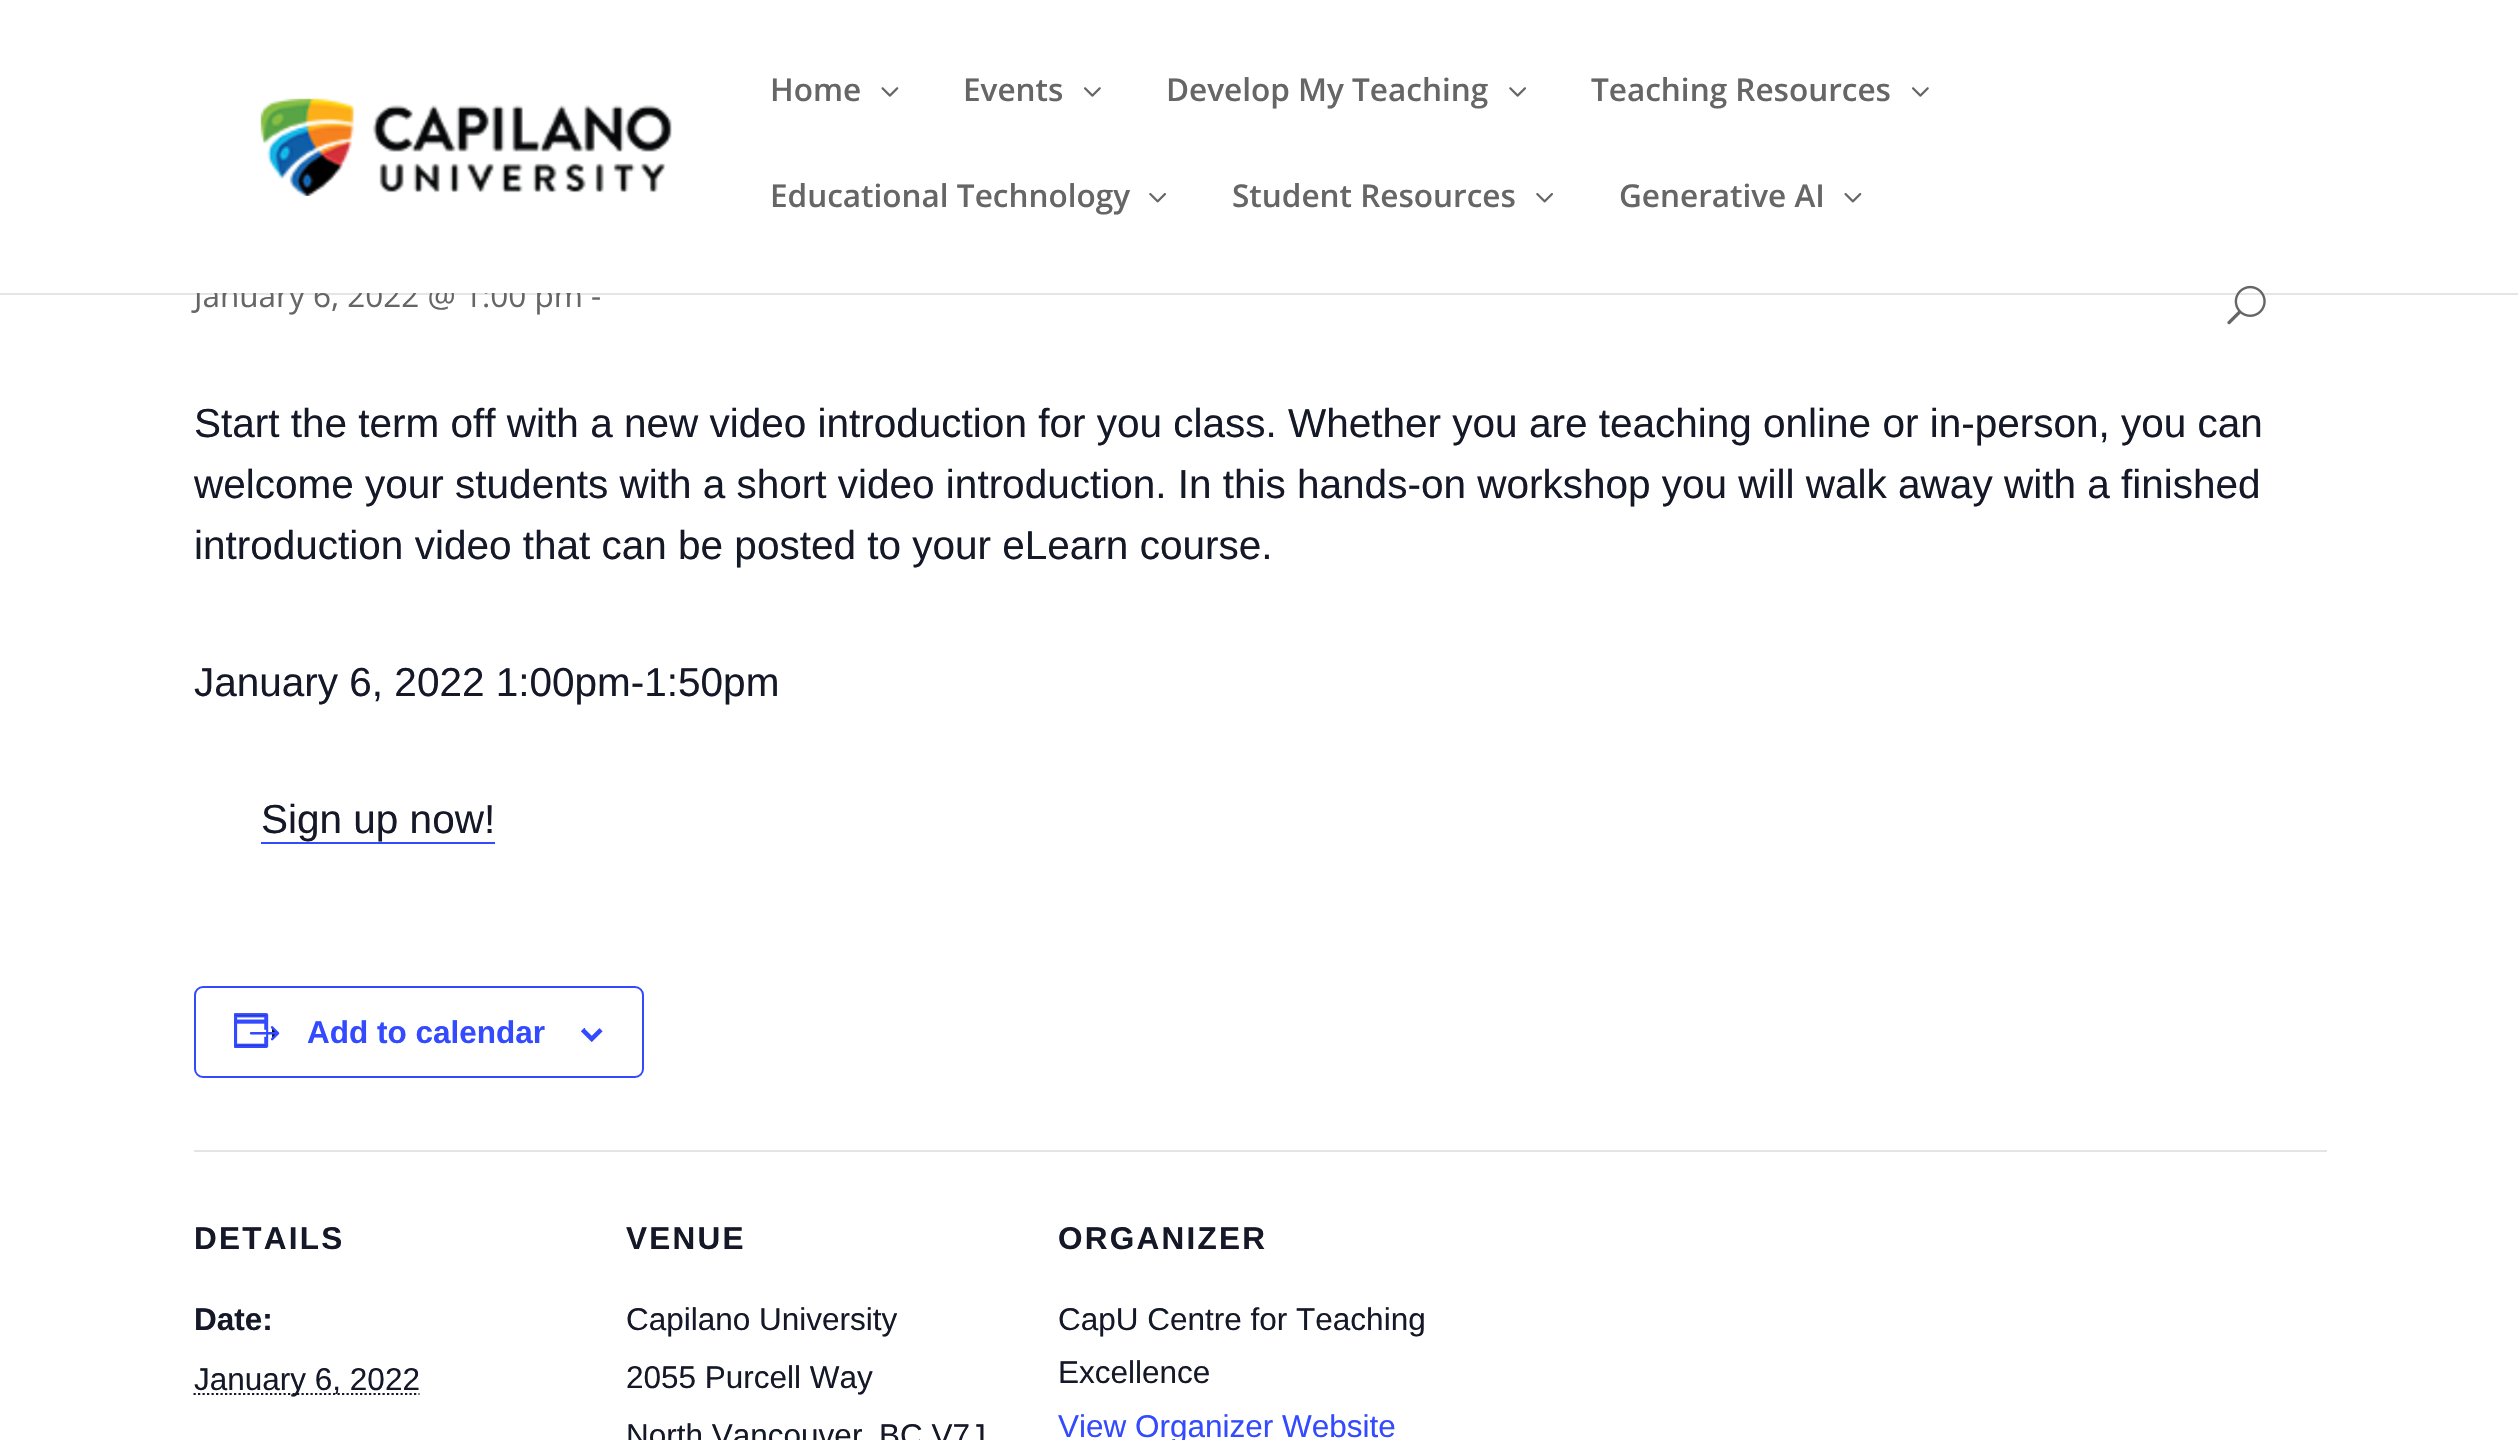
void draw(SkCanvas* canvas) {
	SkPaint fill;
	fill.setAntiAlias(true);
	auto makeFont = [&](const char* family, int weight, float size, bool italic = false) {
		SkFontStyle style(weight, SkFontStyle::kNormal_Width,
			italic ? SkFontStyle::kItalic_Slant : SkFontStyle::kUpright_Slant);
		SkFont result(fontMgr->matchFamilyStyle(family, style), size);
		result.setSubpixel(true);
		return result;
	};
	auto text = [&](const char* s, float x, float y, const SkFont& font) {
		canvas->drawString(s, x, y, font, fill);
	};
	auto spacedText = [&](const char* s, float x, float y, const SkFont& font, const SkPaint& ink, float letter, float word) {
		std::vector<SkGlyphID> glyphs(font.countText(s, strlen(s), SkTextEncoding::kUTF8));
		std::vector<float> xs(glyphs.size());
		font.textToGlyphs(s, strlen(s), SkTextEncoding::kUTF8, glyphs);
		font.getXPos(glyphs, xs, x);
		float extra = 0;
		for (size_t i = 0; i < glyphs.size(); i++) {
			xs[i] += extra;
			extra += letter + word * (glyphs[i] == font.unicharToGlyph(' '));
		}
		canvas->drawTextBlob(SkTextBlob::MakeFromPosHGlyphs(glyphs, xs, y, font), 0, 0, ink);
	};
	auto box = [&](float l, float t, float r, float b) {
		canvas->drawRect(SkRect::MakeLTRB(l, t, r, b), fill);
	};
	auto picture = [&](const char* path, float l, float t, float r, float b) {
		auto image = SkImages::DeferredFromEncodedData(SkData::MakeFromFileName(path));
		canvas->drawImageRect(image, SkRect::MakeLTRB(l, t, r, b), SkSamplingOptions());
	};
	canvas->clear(0xFFFFFFFF);
	fill.setColor(0x1A000000);
	box(0, 293, 2518, 295);
	picture("image0.png", 260, 98, 672, 196);
	picture("image1.png", 881, 87, 899, 97);
	picture("image2.png", 1084, 87, 1101, 97);
	picture("image3.png", 1509, 87, 1526, 97);
	picture("image2.png", 1912, 87, 1929, 97);
	picture("image4.png", 1149, 193, 1166, 203);
	picture("image4.png", 1536, 193, 1553, 203);
	picture("image5.png", 1844, 193, 1862, 203);
	picture("image6.png", 2227, 285, 2266, 325);
	fill.setColor(0xFF334AFF);
	box(261, 842, 495, 844);
	fill.setStyle(SkPaint::kStroke_Style);
	fill.setStrokeWidth(2);
	canvas->drawRoundRect(SkRect::MakeLTRB(195, 987, 643, 1077), 8, 8, fill);
	picture("image7.png", 234, 1013, 280, 1048);
	picture("image8.png", 581, 1028, 603, 1042);
	fill.setStyle(SkPaint::kFill_Style);
	fill.setColor(0xFFE4E4E4);
	box(194, 1150, 2327, 1152);
	fill.setStyle(SkPaint::kStroke_Style);
	fill.setStrokeWidth(2.2f);
	fill.setColor(0xFF141827);
	fill.setPathEffect(SkDashPathEffect::Make({{2.25f, 2.25f}}, 0));
	canvas->drawPath(SkPathBuilder().moveTo(193.5f, 1394).lineTo(419.5f, 1394).detach(), fill);
	fill.setPathEffect(nullptr);
	auto font1 = makeFont("Open Sans", 600, 31.5f);
	fill.setStyle(SkPaint::kFill_Style);
	fill.setColor(0xFF666666);
	text("Home", 770, 101, font1);
	text("Events", 963, 101, font1);
	text("Develop My Teaching", 1166, 101, font1);
	text("Teaching Resources", 1591, 101, font1);
	text("Educational Technology", 770, 207, font1);
	text("Student Resources", 1232, 207, font1);
	text("Generative AI", 1619, 207, font1);
	auto font2 = makeFont("Open Sans", 400, 31.5f);
	text("January 6, 2022 @ 1:00 pm -", 194, 307, font2);
	fill.setColor(0xFFFFFFFF);
	box(196, 284, 580, 293);
	auto font3 = makeFont("Liberation Sans", 400, 40.5f);
	fill.setColor(0xFF141827);
	text("Start the term off with a new video introduction for you class. Whether you are teaching online or in-person, you can", 194, 437, font3);
	text("welcome your students with a short video introduction. In this hands-on workshop you will walk away with a finished", 194, 498, font3);
	text("introduction video that can be posted to your eLearn course.", 194, 559, font3);
	text("January 6, 2022 1:00pm-1:50pm", 194, 696, font3);
	text("Sign up now!", 261, 833, font3);
	auto font4 = makeFont("Liberation Sans", 700, 31.5f);
	fill.setColor(0xFF334AFF);
	text("Add to calendar", 307, 1043, font4);
	fill.setColor(0xFF141827);
	spacedText("DETAILS", 194, 1249, font4, fill, 2.25f, 0);
	text("Date:", 194, 1330, font4);
	auto font5 = makeFont("Liberation Sans", 400, 31.5f);
	text("January 6, 2022", 194, 1390, font5);
	spacedText("VENUE", 626, 1249, font4, fill, 2.25f, 0);
	text("Capilano University", 626, 1330, font5);
	text("2055 Purcell Way", 626, 1388, font5);
	text("North Vancouver", 626, 1446, font5);
	text("BC V7J", 879, 1446, font5);
	spacedText("ORGANIZER", 1058, 1249, font4, fill, 2.25f, 0);
	text("CapU Centre for Teaching", 1058, 1330, font5);
	text("Excellence", 1058, 1383, font5);
	fill.setColor(0xFF334AFF);
	text("View Organizer Website", 1058, 1437, font5);
}
